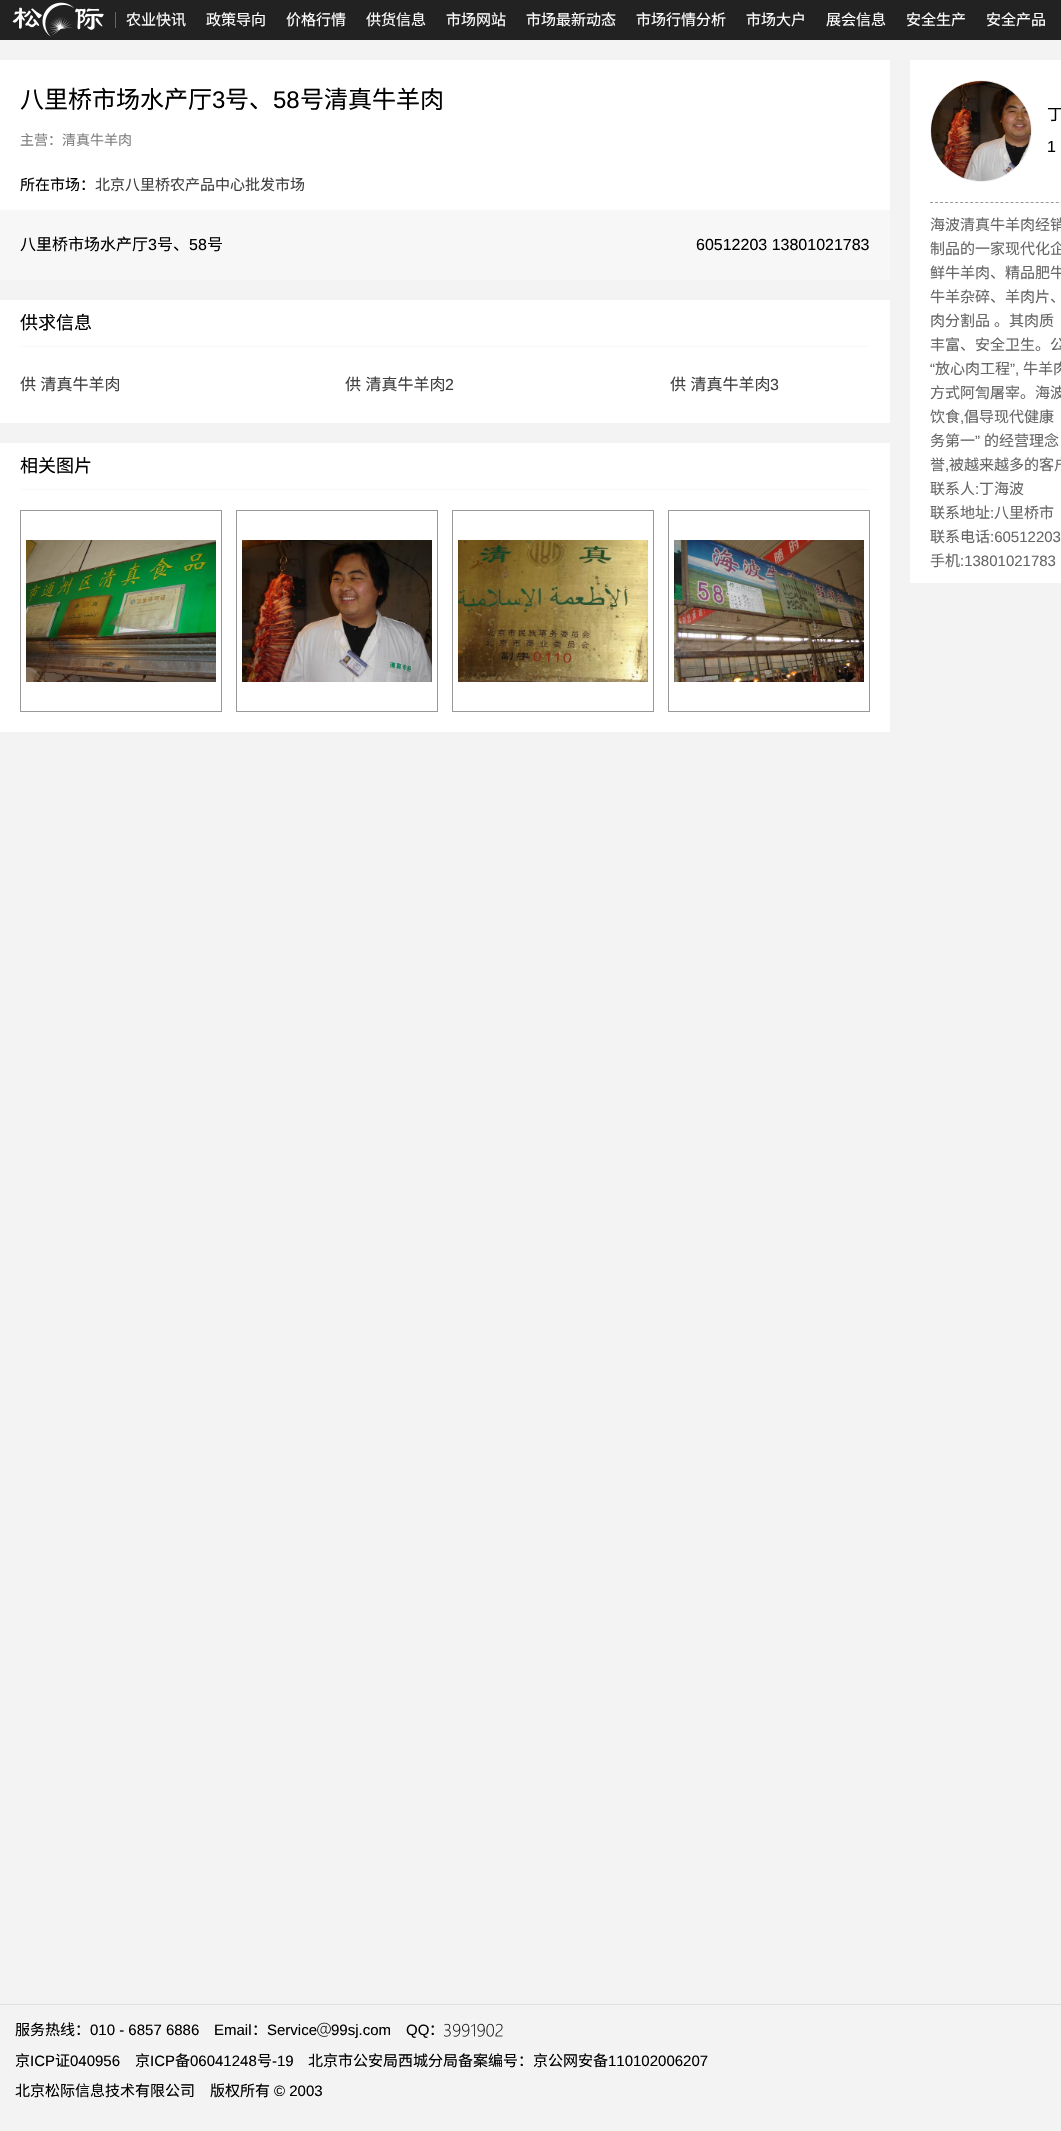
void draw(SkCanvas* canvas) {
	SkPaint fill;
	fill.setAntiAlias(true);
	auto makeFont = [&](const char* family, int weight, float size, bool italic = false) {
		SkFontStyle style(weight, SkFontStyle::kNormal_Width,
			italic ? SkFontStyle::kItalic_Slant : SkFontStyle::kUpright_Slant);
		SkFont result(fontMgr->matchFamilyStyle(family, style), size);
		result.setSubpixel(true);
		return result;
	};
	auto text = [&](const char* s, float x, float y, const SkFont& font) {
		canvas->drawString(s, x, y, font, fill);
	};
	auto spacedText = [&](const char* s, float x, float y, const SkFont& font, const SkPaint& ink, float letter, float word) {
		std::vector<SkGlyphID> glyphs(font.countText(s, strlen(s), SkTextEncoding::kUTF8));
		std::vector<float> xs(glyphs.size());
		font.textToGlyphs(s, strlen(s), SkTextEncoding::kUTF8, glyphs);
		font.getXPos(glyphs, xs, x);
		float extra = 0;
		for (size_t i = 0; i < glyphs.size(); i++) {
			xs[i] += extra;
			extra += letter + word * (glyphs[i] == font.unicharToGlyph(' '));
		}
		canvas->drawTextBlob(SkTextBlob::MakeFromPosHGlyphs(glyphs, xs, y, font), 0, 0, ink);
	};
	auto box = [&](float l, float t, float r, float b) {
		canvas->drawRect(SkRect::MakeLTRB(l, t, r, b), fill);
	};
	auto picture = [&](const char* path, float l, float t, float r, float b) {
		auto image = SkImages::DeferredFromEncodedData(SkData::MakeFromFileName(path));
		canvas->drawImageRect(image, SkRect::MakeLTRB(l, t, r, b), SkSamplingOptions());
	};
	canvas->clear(0xFFF3F3F3);
	fill.setColor(0xFF222222);
	box(0, 0, 1061, 40);
	picture("image0.png", 12, 2, 104, 37);
	fill.setColor(0xFF666666);
	box(115, 12, 116, 28);
	fill.setColor(0xFFFFFFFF);
	box(0, 60, 890, 210);
	fill.setColor(0xFFF7F7F7);
	box(0, 210, 890, 280);
	fill.setColor(0xFFFFFFFF);
	box(0, 300, 890, 423);
	fill.setStyle(SkPaint::kStroke_Style);
	fill.setStrokeWidth(1);
	fill.setColor(0xFFF2F2F2);
	fill.setPathEffect(SkDashPathEffect::Make({{1, 1}}, 0));
	canvas->drawPath(SkPathBuilder().moveTo(20, 346.5f).lineTo(870, 346.5f).detach(), fill);
	fill.setPathEffect(nullptr);
	fill.setStyle(SkPaint::kFill_Style);
	fill.setColor(0xFFFFFFFF);
	box(0, 443, 890, 732);
	fill.setStyle(SkPaint::kStroke_Style);
	fill.setColor(0xFFF2F2F2);
	fill.setPathEffect(SkDashPathEffect::Make({{1, 1}}, 0));
	canvas->drawPath(SkPathBuilder().moveTo(20, 489.5f).lineTo(870, 489.5f).detach(), fill);
	fill.setPathEffect(nullptr);
	fill.setColor(0xFF999999);
	canvas->drawRect(SkRect::MakeLTRB(20.5f, 510.5f, 221.5f, 711.5f), fill);
	picture("image1.png", 26, 540, 216, 682);
	canvas->drawRect(SkRect::MakeLTRB(236.5f, 510.5f, 437.5f, 711.5f), fill);
	picture("image2.png", 242, 540, 432, 682);
	canvas->drawRect(SkRect::MakeLTRB(452.5f, 510.5f, 653.5f, 711.5f), fill);
	picture("image3.png", 458, 540, 648, 682);
	canvas->drawRect(SkRect::MakeLTRB(668.5f, 510.5f, 869.5f, 711.5f), fill);
	picture("image4.png", 674, 540, 864, 682);
	fill.setStyle(SkPaint::kFill_Style);
	fill.setColor(0xFFFFFFFF);
	box(910, 60, 1061, 583);
	fill.setStyle(SkPaint::kStroke_Style);
	fill.setColor(0xFF999999);
	fill.setPathEffect(SkDashPathEffect::Make({{3, 2.03f}}, 0));
	canvas->drawPath(SkPathBuilder().moveTo(930, 202.5f).lineTo(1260, 202.5f).detach(), fill);
	fill.setPathEffect(nullptr);
	fill.setColor(0xFFEFEFEF);
	canvas->drawCircle(981, 131, 50.5f, fill);
	picture("image5.png", 931, 81, 1031, 181);
	fill.setStyle(SkPaint::kFill_Style);
	fill.setColor(0xFFE0E0E0);
	box(0, 2004, 1061, 2005);
	picture("image6.png", 317, 2022, 331, 2037);
	picture("image7.png", 444, 2023, 503, 2037);
	auto font1 = makeFont("Noto Sans CJK SC", 400, 15);
	fill.setColor(0xFFFFFFFF);
	text("农业快讯", 126, 25, font1);
	text("政策导向", 206, 25, font1);
	text("价格行情", 286, 25, font1);
	text("供货信息", 366, 25, font1);
	text("市场网站", 446, 25, font1);
	text("市场最新动态", 526, 25, font1);
	text("市场行情分析", 636, 25, font1);
	text("市场大户", 746, 25, font1);
	text("展会信息", 826, 25, font1);
	text("安全生产", 906, 25, font1);
	text("安全产品", 986, 25, font1);
	auto font2 = makeFont("Noto Sans CJK SC", 400, 24);
	fill.setColor(0xFF000000);
	text("八里桥市场水产厅", 20, 108, font2);
	auto font3 = makeFont("Liberation Sans", 400, 24);
	text("3", 212, 108, font3);
	text("号、", 225, 108, font2);
	text("58", 273, 108, font3);
	text("号清真牛羊肉", 300, 108, font2);
	auto font4 = makeFont("Noto Sans CJK SC", 400, 14);
	fill.setColor(0xFF808080);
	text("主营：清真牛羊肉", 20, 145, font4);
	fill.setColor(0xFF000000);
	text("所在市场：", 20, 190, font1);
	fill.setColor(0xFF404040);
	text("北京八里桥农产品中心批发市场", 95, 190, font1);
	auto font5 = makeFont("Noto Sans CJK SC", 400, 16);
	fill.setColor(0xFF000000);
	text("八里桥市场水产厅", 20, 250, font5);
	auto font6 = makeFont("Liberation Sans", 400, 16);
	text("3", 148, 250, font6);
	text("号、", 157, 250, font5);
	text("58", 189, 250, font6);
	text("号", 207, 250, font5);
	text("60512203 13801021783", 696, 250, font6);
	auto font7 = makeFont("Noto Sans CJK SC", 400, 18);
	text("供求信息", 20, 329, font7);
	fill.setColor(0xFF404040);
	spacedText("供 清真牛羊肉", 20, 390, font5, fill, 0, 1);
	spacedText("供 清真牛羊肉", 345, 390, font5, fill, 0, 1);
	text("2", 445, 390, font6);
	spacedText("供 清真牛羊肉", 670, 390, font5, fill, 0, 1);
	text("3", 770, 390, font6);
	fill.setColor(0xFF000000);
	text("相关图片", 20, 472, font7);
	text("丁", 1047, 120, font5);
	text("1", 1047, 152, font6);
	fill.setColor(0xFF666666);
	text("海波清真牛羊肉经销", 930, 230, font1);
	text("制品的一家现代化企", 930, 254, font1);
	text("鲜牛羊肉、精品肥牛", 930, 278, font1);
	text("牛羊杂碎、羊肉片、", 930, 302, font1);
	text("肉分割品", 930, 326, font1);
	text("。其肉质", 994, 326, font1);
	text("丰富、安全卫生。公", 930, 350, font1);
	auto font8 = makeFont("Liberation Sans", 400, 15);
	text("“", 930, 374, font8);
	text("放心肉工程", 935, 374, font1);
	text("”,", 1010, 374, font8);
	text("牛羊肉", 1023, 374, font1);
	text("方式阿訇屠宰。海波", 930, 398, font1);
	text("饮食", 930, 422, font1);
	text(",", 960, 422, font8);
	text("倡导现代健康", 964, 422, font1);
	text("务第一", 930, 446, font1);
	text("”", 975, 446, font8);
	text("的经营理念", 984, 446, font1);
	text("誉", 930, 470, font1);
	text(",", 945, 470, font8);
	text("被越来越多的客户", 949, 470, font1);
	text("联系人", 930, 494, font1);
	text(":", 975, 494, font8);
	text("丁海波", 979, 494, font1);
	text("联系地址", 930, 518, font1);
	text(":", 990, 518, font8);
	text("八里桥市", 994, 518, font1);
	text("联系电话", 930, 542, font1);
	text(":60512203", 990, 542, font8);
	text("手机", 930, 566, font1);
	text(":13801021783", 960, 566, font8);
	fill.setColor(0xFF000000);
	text("服务热线：", 15, 2035, font1);
	text("010 - 6857 6886", 90, 2035, font8);
	text("Email", 214, 2035, font8);
	text("：", 252, 2035, font1);
	text("Service", 267, 2035, font8);
	text("99sj.com", 331, 2035, font8);
	text("QQ", 406, 2035, font8);
	text("：", 429, 2035, font1);
	text("京", 15, 2066, font1);
	text("ICP", 30, 2066, font8);
	text("证", 55, 2066, font1);
	text("040956", 70, 2066, font8);
	text("京", 135, 2066, font1);
	text("ICP", 150, 2066, font8);
	text("备", 175, 2066, font1);
	text("06041248", 190, 2066, font8);
	text("号", 257, 2066, font1);
	text("-19", 272, 2066, font8);
	text("北京市公安局西城分局备案编号：京公网安备", 308, 2066, font1);
	text("110102006207", 608, 2066, font8);
	text("北京松际信息技术有限公司　版权所有", 15, 2096, font1);
	text("© 2003", 274, 2096, font8);
}
